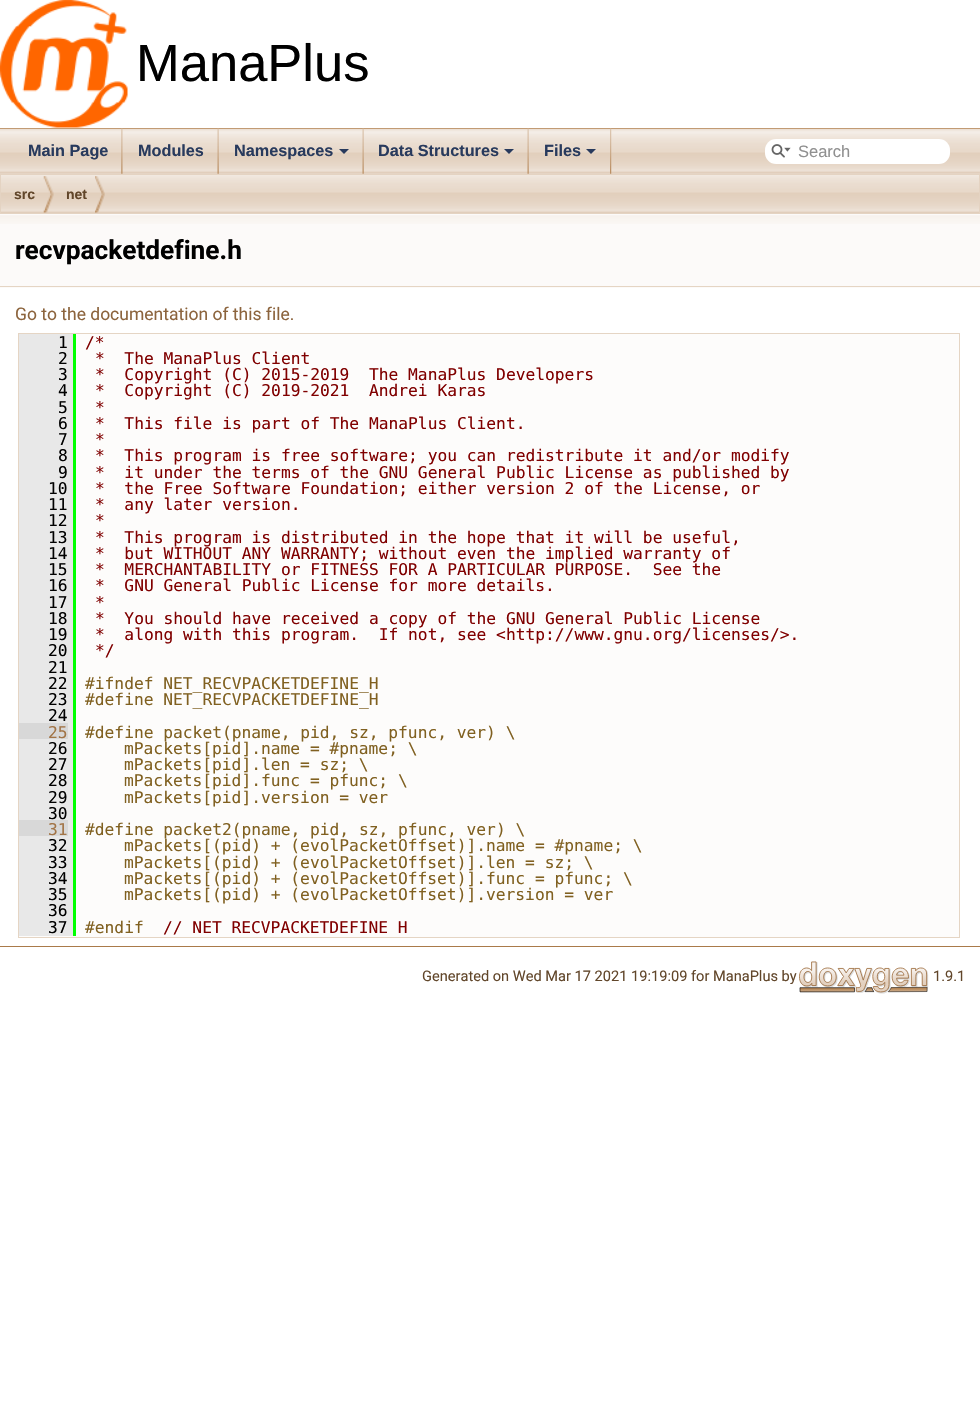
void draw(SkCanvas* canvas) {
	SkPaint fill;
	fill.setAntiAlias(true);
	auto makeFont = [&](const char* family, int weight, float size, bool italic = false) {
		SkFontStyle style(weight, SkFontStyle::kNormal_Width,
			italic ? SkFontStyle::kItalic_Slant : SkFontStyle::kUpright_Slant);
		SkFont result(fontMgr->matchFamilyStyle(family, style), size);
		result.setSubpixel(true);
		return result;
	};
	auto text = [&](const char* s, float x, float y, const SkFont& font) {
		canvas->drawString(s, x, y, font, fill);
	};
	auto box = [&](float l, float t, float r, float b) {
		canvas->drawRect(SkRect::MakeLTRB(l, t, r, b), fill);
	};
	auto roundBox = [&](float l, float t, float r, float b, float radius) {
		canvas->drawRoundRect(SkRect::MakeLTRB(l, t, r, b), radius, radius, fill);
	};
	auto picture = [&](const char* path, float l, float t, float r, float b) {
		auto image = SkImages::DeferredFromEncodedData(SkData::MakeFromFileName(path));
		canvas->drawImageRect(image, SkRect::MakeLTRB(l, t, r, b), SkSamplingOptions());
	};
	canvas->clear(0xFFFFFFFF);
	fill.setColor(0xFFB48453);
	box(0, 128, 980, 129);
	picture("image0.png", 0, 0, 128, 128);
	picture("image6.png", 0, 173, 980, 213);
	picture("image1.png", 0, 128, 980, 174);
	picture("image2.png", 121, 128, 123, 174);
	picture("image3.png", 217, 128, 219, 174);
	picture("image3.png", 362, 128, 364, 174);
	fill.setColor(0xFF283A5D);
	canvas->drawPath(SkPathBuilder().moveTo(339, 149).lineTo(349, 149).lineTo(344, 154).close().detach(), fill);
	picture("image3.png", 527, 128, 529, 174);
	canvas->drawPath(SkPathBuilder().moveTo(504, 149).lineTo(514, 149).lineTo(509, 154).close().detach(), fill);
	picture("image4.png", 610, 128, 612, 174);
	canvas->drawPath(SkPathBuilder().moveTo(586, 149).lineTo(596, 149).lineTo(591, 154).close().detach(), fill);
	fill.setColor(0xFFFFFFFF);
	roundBox(765, 139, 950, 164, 11);
	picture("image5.png", 771, 144, 791, 158);
	fill.setStyle(SkPaint::kStroke_Style);
	fill.setStrokeWidth(1);
	fill.setColor(0xFFE4D3C2);
	canvas->drawRect(SkRect::MakeLTRB(0.5f, 174.5f, 979.5f, 213.5f), fill);
	picture("image7.png", 43, 176, 54, 213);
	picture("image8.png", 95, 176, 105, 213);
	fill.setStyle(SkPaint::kFill_Style);
	fill.setColor(0xFFFCFAF9);
	box(0, 214, 980, 288);
	picture("image9.png", 0, 215, 980, 224);
	fill.setColor(0xFFE5D5C4);
	box(0, 286, 980, 287);
	fill.setColor(0xFFFDFCFB);
	canvas->drawRect(SkRect::MakeLTRB(18.5f, 333.5f, 959.5f, 937.5f), fill);
	fill.setStyle(SkPaint::kStroke_Style);
	fill.setColor(0xFFE5D5C4);
	canvas->drawRect(SkRect::MakeLTRB(18.5f, 333.5f, 959.5f, 937.5f), fill);
	fill.setStyle(SkPaint::kFill_Style);
	fill.setColor(0xFFE8E8E8);
	box(19, 334, 73, 723);
	fill.setColor(0xFF00FF00);
	box(73, 334, 76, 936);
	fill.setColor(0xFFE8E8E8);
	box(68, 723, 73, 739);
	fill.setColor(0xFFD8D8D8);
	box(19, 723, 68, 739);
	fill.setColor(0xFFE8E8E8);
	box(19, 739, 73, 820);
	box(68, 820, 73, 836);
	fill.setColor(0xFFD8D8D8);
	box(19, 820, 68, 836);
	fill.setColor(0xFFE8E8E8);
	box(19, 836, 73, 936);
	fill.setColor(0xFFAA7A4A);
	box(0, 946, 980, 947);
	picture("image10.png", 799, 961, 929, 994);
	auto font1 = makeFont("Liberation Sans", 400, 52.5f);
	fill.setColor(0xFF000000);
	text("ManaPlus", 136, 81, font1);
	auto font2 = makeFont("Liberation Sans", 700, 16.25f);
	fill.setColor(0xFF283A5D);
	text("Main Page", 28, 156, font2);
	text("Modules", 138, 156, font2);
	text("Namespaces", 234, 156, font2);
	text("Data Structures", 378, 156, font2);
	text("Files", 544, 156, font2);
	auto font3 = makeFont("Liberation Sans", 400, 16.5f);
	fill.setColor(0xFF909090);
	text("Search", 798, 157, font3);
	auto font4 = makeFont("Liberation Sans", 700, 14);
	fill.setColor(0xFF61462A);
	text("src", 14, 199, font4);
	text("net", 66, 199, font4);
	auto font5 = makeFont("Roboto", 700, 26.25f);
	fill.setColor(0xFF000000);
	text("recvpacketdefine.h", 15, 259, font5);
	auto font6 = makeFont("Roboto", 400, 17.5f);
	fill.setColor(0xFF8C643D);
	text("Go to the documentation of this file.", 15, 320, font6);
	auto font7 = makeFont("DejaVu Sans Mono", 400, 16.25f);
	fill.setColor(0xFF000000);
	text("1", 58, 348, font7);
	fill.setColor(0xFF800000);
	text("/*", 85, 348, font7);
	fill.setColor(0xFF000000);
	text("2", 58, 364, font7);
	fill.setColor(0xFF800000);
	text("*  The ManaPlus Client", 95, 364, font7);
	fill.setColor(0xFF000000);
	text("3", 58, 380, font7);
	fill.setColor(0xFF800000);
	text("*  Copyright (C) 2015-2019  The ManaPlus Developers", 95, 380, font7);
	fill.setColor(0xFF000000);
	text("4", 58, 396, font7);
	fill.setColor(0xFF800000);
	text("*  Copyright (C) 2019-2021  Andrei Karas", 95, 396, font7);
	fill.setColor(0xFF000000);
	text("5", 58, 413, font7);
	fill.setColor(0xFF800000);
	text("*", 95, 413, font7);
	fill.setColor(0xFF000000);
	text("6", 58, 429, font7);
	fill.setColor(0xFF800000);
	text("*  This file is part of The ManaPlus Client.", 95, 429, font7);
	fill.setColor(0xFF000000);
	text("7", 58, 445, font7);
	fill.setColor(0xFF800000);
	text("*", 95, 445, font7);
	fill.setColor(0xFF000000);
	text("8", 58, 461, font7);
	fill.setColor(0xFF800000);
	text("*  This program is free software; you can redistribute it and/or modify", 95, 461, font7);
	fill.setColor(0xFF000000);
	text("9", 58, 478, font7);
	fill.setColor(0xFF800000);
	text("*  it under the terms of the GNU General Public License as published by", 95, 478, font7);
	fill.setColor(0xFF000000);
	text("10", 48, 494, font7);
	fill.setColor(0xFF800000);
	text("*  the Free Software Foundation; either version 2 of the License, or", 95, 494, font7);
	fill.setColor(0xFF000000);
	text("11", 48, 510, font7);
	fill.setColor(0xFF800000);
	text("*  any later version.", 95, 510, font7);
	fill.setColor(0xFF000000);
	text("12", 48, 526, font7);
	fill.setColor(0xFF800000);
	text("*", 95, 526, font7);
	fill.setColor(0xFF000000);
	text("13", 48, 543, font7);
	fill.setColor(0xFF800000);
	text("*  This program is distributed in the hope that it will be useful,", 95, 543, font7);
	fill.setColor(0xFF000000);
	text("14", 48, 559, font7);
	fill.setColor(0xFF800000);
	text("*  but WITHOUT ANY WARRANTY; without even the implied warranty of", 95, 559, font7);
	fill.setColor(0xFF000000);
	text("15", 48, 575, font7);
	fill.setColor(0xFF800000);
	text("*  MERCHANTABILITY or FITNESS FOR A PARTICULAR PURPOSE.  See the", 95, 575, font7);
	fill.setColor(0xFF000000);
	text("16", 48, 591, font7);
	fill.setColor(0xFF800000);
	text("*  GNU General Public License for more details.", 95, 591, font7);
	fill.setColor(0xFF000000);
	text("17", 48, 608, font7);
	fill.setColor(0xFF800000);
	text("*", 95, 608, font7);
	fill.setColor(0xFF000000);
	text("18", 48, 624, font7);
	fill.setColor(0xFF800000);
	text("*  You should have received a copy of the GNU General Public License", 95, 624, font7);
	fill.setColor(0xFF000000);
	text("19", 48, 640, font7);
	fill.setColor(0xFF800000);
	text("*  along with this program.  If not, see <http://www.gnu.org/licenses/>.", 95, 640, font7);
	fill.setColor(0xFF000000);
	text("20", 48, 656, font7);
	fill.setColor(0xFF800000);
	text("*/", 95, 656, font7);
	fill.setColor(0xFF000000);
	text("21", 48, 673, font7);
	text("22", 48, 689, font7);
	fill.setColor(0xFF806020);
	text("#ifndef NET_RECVPACKETDEFINE_H", 85, 689, font7);
	fill.setColor(0xFF000000);
	text("23", 48, 705, font7);
	fill.setColor(0xFF806020);
	text("#define NET_RECVPACKETDEFINE_H", 85, 705, font7);
	fill.setColor(0xFF000000);
	text("24", 48, 721, font7);
	fill.setColor(0xFFA27446);
	text("25", 48, 738, font7);
	fill.setColor(0xFF806020);
	text("#define packet(pname, pid, sz, pfunc, ver) \\", 85, 738, font7);
	fill.setColor(0xFF000000);
	text("26", 48, 754, font7);
	fill.setColor(0xFF806020);
	text("mPackets[pid].name = #pname; \\", 124, 754, font7);
	fill.setColor(0xFF000000);
	text("27", 48, 770, font7);
	fill.setColor(0xFF806020);
	text("mPackets[pid].len = sz; \\", 124, 770, font7);
	fill.setColor(0xFF000000);
	text("28", 48, 786, font7);
	fill.setColor(0xFF806020);
	text("mPackets[pid].func = pfunc; \\", 124, 786, font7);
	fill.setColor(0xFF000000);
	text("29", 48, 803, font7);
	fill.setColor(0xFF806020);
	text("mPackets[pid].version = ver", 124, 803, font7);
	fill.setColor(0xFF000000);
	text("30", 48, 819, font7);
	fill.setColor(0xFFA27446);
	text("31", 48, 835, font7);
	fill.setColor(0xFF806020);
	text("#define packet2(pname, pid, sz, pfunc, ver) \\", 85, 835, font7);
	fill.setColor(0xFF000000);
	text("32", 48, 851, font7);
	fill.setColor(0xFF806020);
	text("mPackets[(pid) + (evolPacketOffset)].name = #pname; \\", 124, 851, font7);
	fill.setColor(0xFF000000);
	text("33", 48, 868, font7);
	fill.setColor(0xFF806020);
	text("mPackets[(pid) + (evolPacketOffset)].len = sz; \\", 124, 868, font7);
	fill.setColor(0xFF000000);
	text("34", 48, 884, font7);
	fill.setColor(0xFF806020);
	text("mPackets[(pid) + (evolPacketOffset)].func = pfunc; \\", 124, 884, font7);
	fill.setColor(0xFF000000);
	text("35", 48, 900, font7);
	fill.setColor(0xFF806020);
	text("mPackets[(pid) + (evolPacketOffset)].version = ver", 124, 900, font7);
	fill.setColor(0xFF000000);
	text("36", 48, 916, font7);
	text("37", 48, 933, font7);
	fill.setColor(0xFF806020);
	text("#endif", 85, 933, font7);
	canvas->save();
	canvas->clipRect(SkRect::MakeLTRB(19, 334, 959, 936));
	fill.setColor(0xFF800000);
	text("// NET_RECVPACKETDEFINE_H", 163, 933, font7);
	canvas->restore();
	auto font8 = makeFont("Roboto", 400, 14.6f);
	fill.setColor(0xFF61462A);
	text("Generated on Wed Mar 17 2021 19:19:09 for ManaPlus by", 422, 981, font8);
	text("1.9.1", 933, 981, font8);
}
